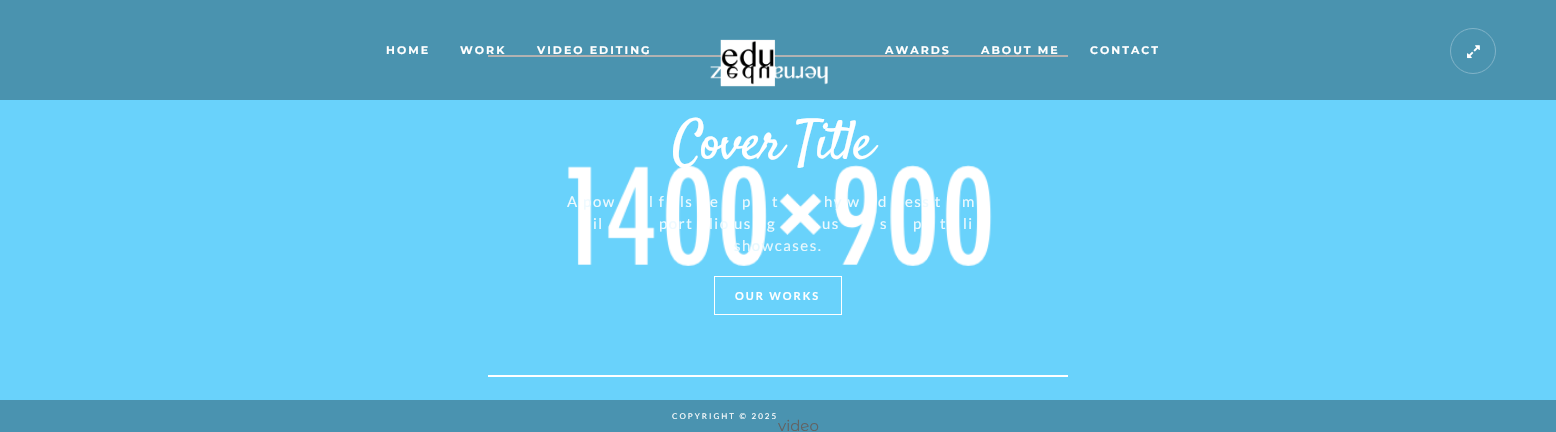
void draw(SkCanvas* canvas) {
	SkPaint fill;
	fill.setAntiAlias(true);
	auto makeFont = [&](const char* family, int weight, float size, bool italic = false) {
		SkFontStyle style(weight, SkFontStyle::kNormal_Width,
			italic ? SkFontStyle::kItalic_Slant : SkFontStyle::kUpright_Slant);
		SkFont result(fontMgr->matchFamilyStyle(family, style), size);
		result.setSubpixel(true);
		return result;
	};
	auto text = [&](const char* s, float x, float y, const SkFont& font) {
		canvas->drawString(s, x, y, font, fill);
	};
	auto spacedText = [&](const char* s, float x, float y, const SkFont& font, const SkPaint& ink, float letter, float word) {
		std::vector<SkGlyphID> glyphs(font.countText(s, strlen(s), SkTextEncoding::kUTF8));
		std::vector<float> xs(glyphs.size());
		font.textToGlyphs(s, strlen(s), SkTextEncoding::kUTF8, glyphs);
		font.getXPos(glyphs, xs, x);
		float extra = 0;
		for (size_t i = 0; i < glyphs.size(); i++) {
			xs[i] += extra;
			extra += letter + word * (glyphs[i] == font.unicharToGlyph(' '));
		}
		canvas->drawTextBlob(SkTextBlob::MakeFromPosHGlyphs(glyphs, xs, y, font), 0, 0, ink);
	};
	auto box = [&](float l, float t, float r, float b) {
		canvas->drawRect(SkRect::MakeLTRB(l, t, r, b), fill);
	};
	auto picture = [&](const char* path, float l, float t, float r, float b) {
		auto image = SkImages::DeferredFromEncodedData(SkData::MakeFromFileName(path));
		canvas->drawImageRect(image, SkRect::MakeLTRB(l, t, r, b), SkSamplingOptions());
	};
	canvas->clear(0xFFFFFFFF);
	picture("image0.png", 0, 0, 1556, 400);
	fill.setColor(0xFFFFFFFF);
	box(488, 55, 1068, 57);
	fill.setColor(0x4D000000);
	box(0, 0, 1556, 100);
	picture("image1.png", 710, 39, 828, 87);
	fill.setStyle(SkPaint::kStroke_Style);
	fill.setStrokeWidth(1);
	fill.setColor(0xFF80B3C8);
	canvas->drawCircle(1473, 51, 22.5f, fill);
	picture("image2.png", 1467, 45, 1480, 59);
	fill.setStyle(SkPaint::kFill_Style);
	fill.setColor(0xFFFFFFFF);
	box(488, 375, 1068, 377);
	fill.setStyle(SkPaint::kStroke_Style);
	canvas->drawRect(SkRect::MakeLTRB(714.5f, 276.5f, 841.5f, 314.5f), fill);
	fill.setStyle(SkPaint::kFill_Style);
	fill.setColor(0xFF4A93B0);
	box(0, 400, 1556, 432);
	auto font1 = makeFont("Montserrat", 700, 11);
	fill.setColor(0xFFFFFFFF);
	spacedText("HOME", 386, 54, font1, fill, 2, 0);
	spacedText("WORK", 460, 54, font1, fill, 2, 0);
	spacedText("VIDEO EDITING", 537, 54, font1, fill, 2, 0);
	spacedText("AWARDS", 885, 54, font1, fill, 2, 0);
	spacedText("ABOUT ME", 981, 54, font1, fill, 2, 0);
	spacedText("CONTACT", 1090, 54, font1, fill, 2, 0);
	auto font2 = makeFont("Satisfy", 400, 55);
	spacedText("Cover Title", 673, 158, font2, fill, -2, 0);
	auto font3 = makeFont("Lato", 400, 15);
	fill.setColor(0xFFEEFAFF);
	spacedText("A pow", 567, 207, font3, fill, 1.5f, 0);
	spacedText("l f", 649, 207, font3, fill, 1.5f, 0);
	spacedText("ls", 680, 207, font3, fill, 1.5f, 0);
	spacedText("e", 710, 207, font3, fill, 1.5f, 0);
	spacedText("p", 742, 207, font3, fill, 1.5f, 0);
	spacedText("t", 772, 207, font3, fill, 1.5f, 0);
	spacedText("hy w", 824, 207, font3, fill, 1.5f, 0);
	spacedText("d", 878, 207, font3, fill, 1.5f, 0);
	spacedText("ess t", 905, 207, font3, fill, 1.5f, 0);
	spacedText("m", 962, 207, font3, fill, 1.5f, 0);
	spacedText("il", 593, 229, font3, fill, 1.5f, 0);
	spacedText("port", 659, 229, font3, fill, 1.5f, 0);
	spacedText("lio us", 709, 229, font3, fill, 1.5f, 0);
	spacedText("g", 767, 229, font3, fill, 1.5f, 0);
	spacedText("us", 822, 229, font3, fill, 1.5f, 0);
	spacedText("s", 880, 229, font3, fill, 1.5f, 0);
	spacedText("p", 913, 229, font3, fill, 1.5f, 0);
	spacedText("t", 940, 229, font3, fill, 1.5f, 0);
	spacedText("li", 963, 229, font3, fill, 1.5f, 0);
	fill.setColor(0xFFE7F8FE);
	spacedText("showcases.", 734, 251, font3, fill, 1.5f, 0);
	auto font4 = makeFont("Lato", 700, 11);
	fill.setColor(0xFFFFFFFF);
	spacedText("OUR WORKS", 735, 300, font4, fill, 2, 0);
	auto font5 = makeFont("Lato", 400, 8);
	spacedText("COPYRIGHT © 2025", 672, 419, font5, fill, 2, 0);
	auto font6 = makeFont("Montserrat Alternates", 400, 15);
	fill.setColor(0xFF626262);
	text("video", 778, 431, font6);
}
